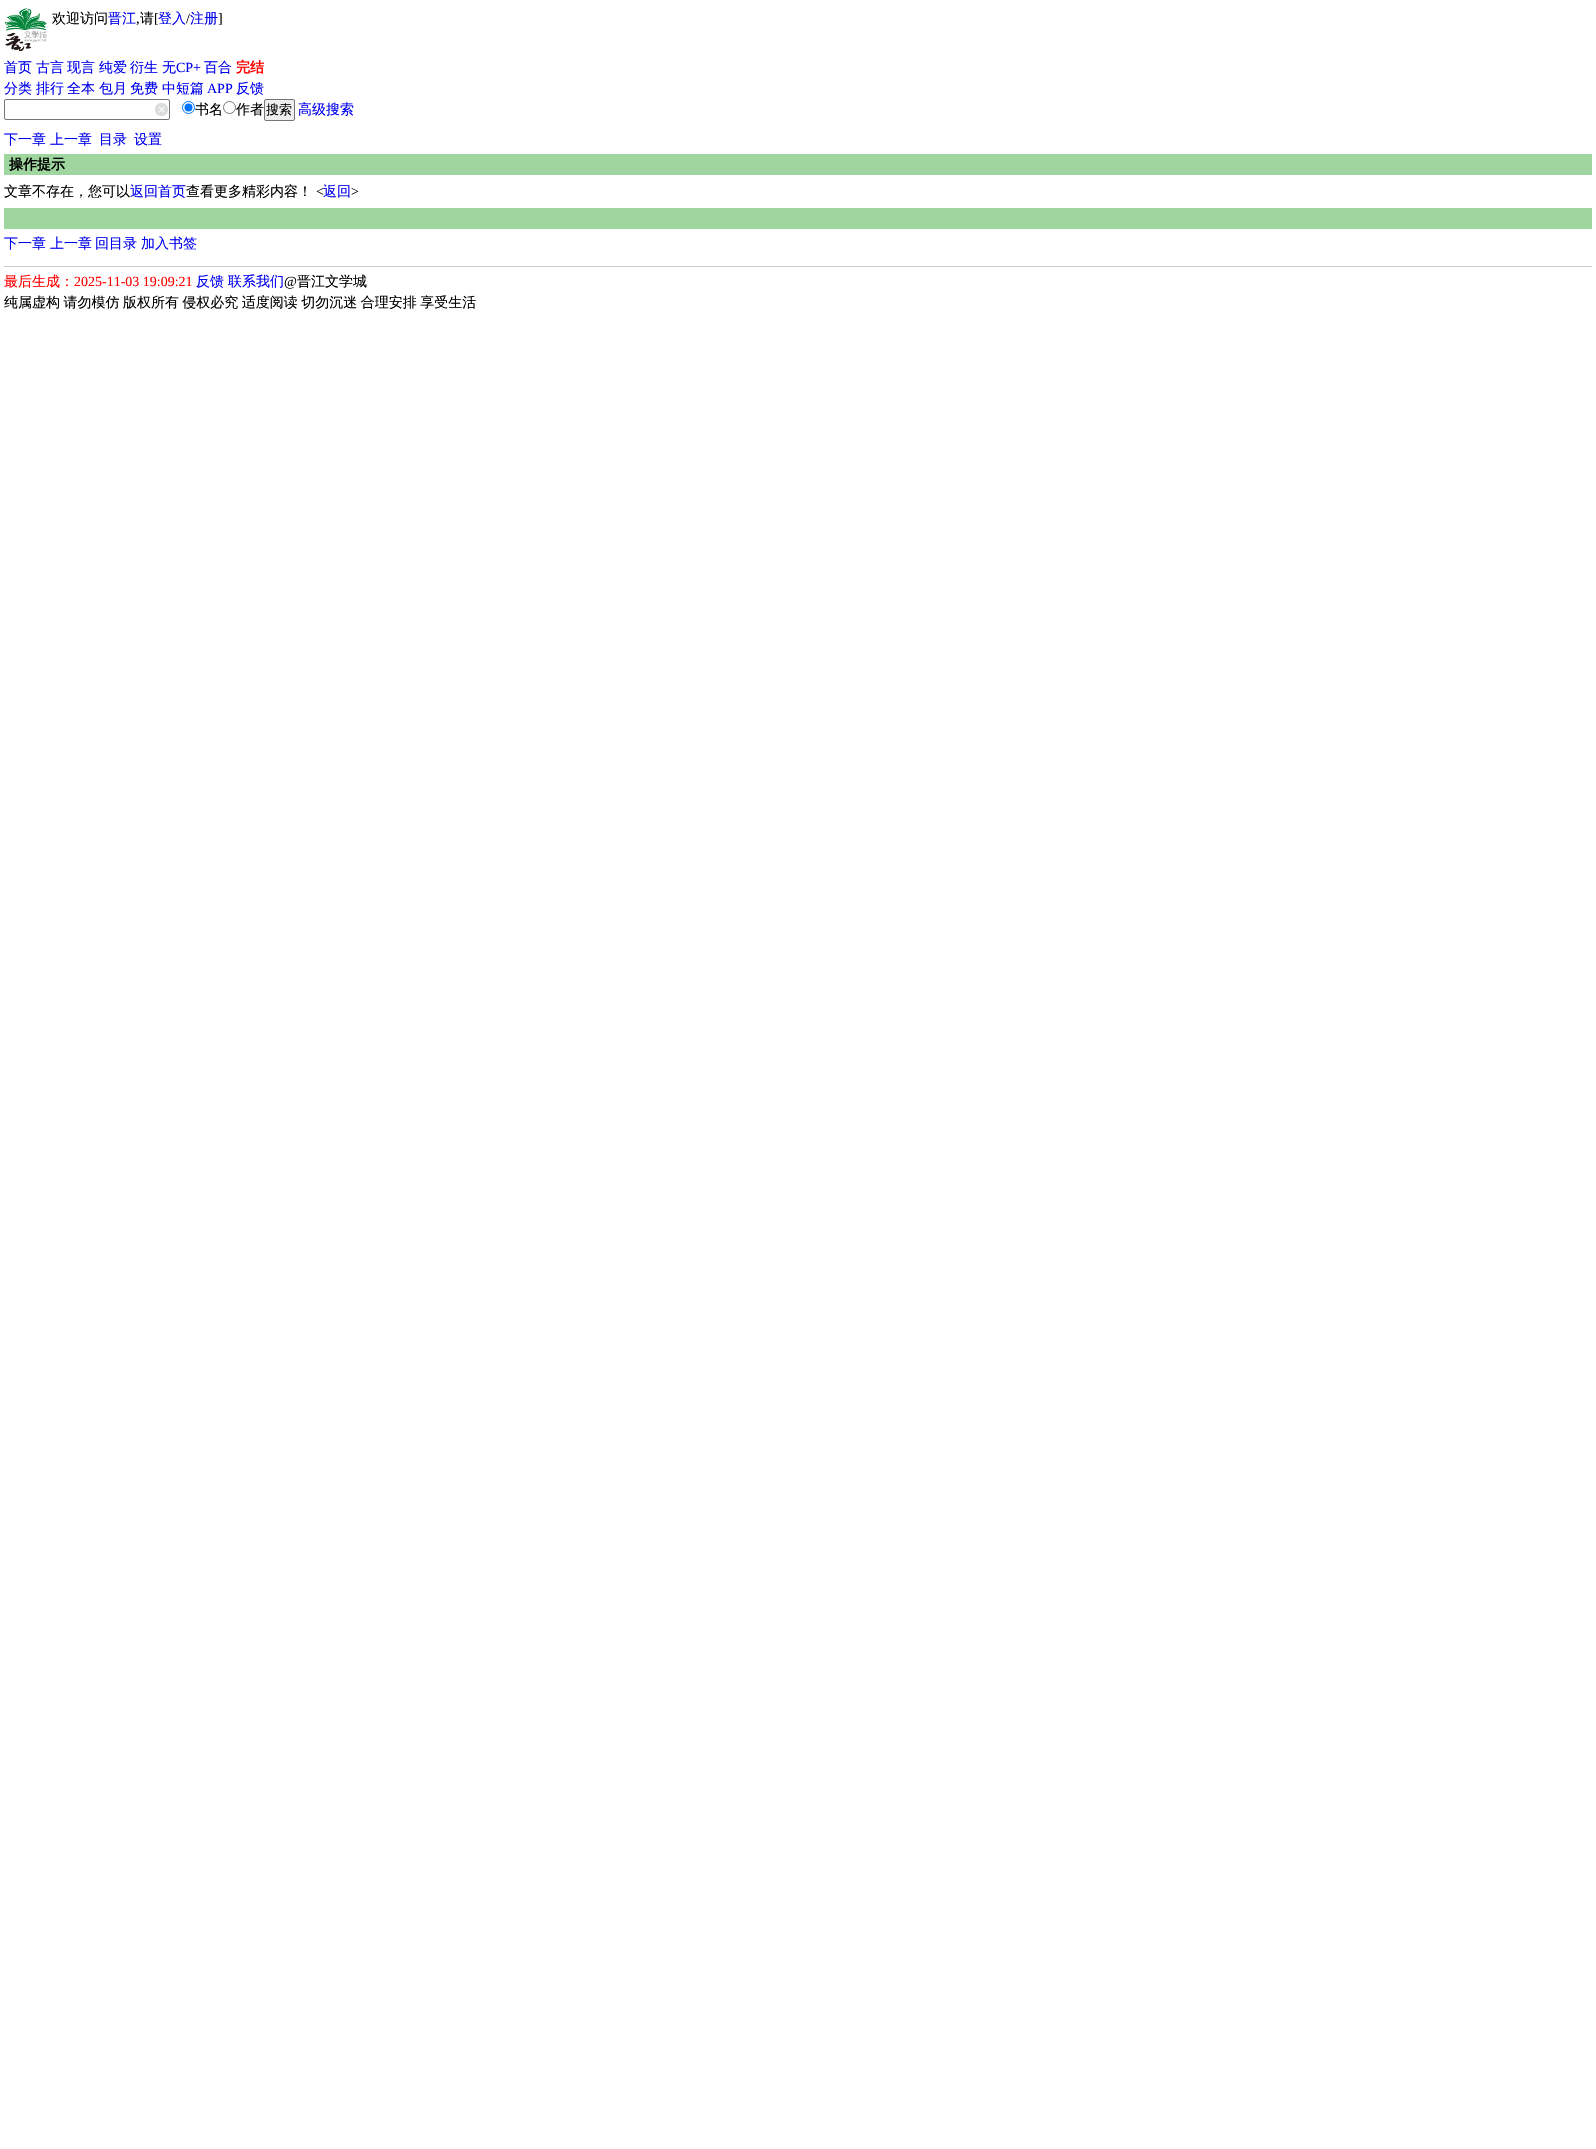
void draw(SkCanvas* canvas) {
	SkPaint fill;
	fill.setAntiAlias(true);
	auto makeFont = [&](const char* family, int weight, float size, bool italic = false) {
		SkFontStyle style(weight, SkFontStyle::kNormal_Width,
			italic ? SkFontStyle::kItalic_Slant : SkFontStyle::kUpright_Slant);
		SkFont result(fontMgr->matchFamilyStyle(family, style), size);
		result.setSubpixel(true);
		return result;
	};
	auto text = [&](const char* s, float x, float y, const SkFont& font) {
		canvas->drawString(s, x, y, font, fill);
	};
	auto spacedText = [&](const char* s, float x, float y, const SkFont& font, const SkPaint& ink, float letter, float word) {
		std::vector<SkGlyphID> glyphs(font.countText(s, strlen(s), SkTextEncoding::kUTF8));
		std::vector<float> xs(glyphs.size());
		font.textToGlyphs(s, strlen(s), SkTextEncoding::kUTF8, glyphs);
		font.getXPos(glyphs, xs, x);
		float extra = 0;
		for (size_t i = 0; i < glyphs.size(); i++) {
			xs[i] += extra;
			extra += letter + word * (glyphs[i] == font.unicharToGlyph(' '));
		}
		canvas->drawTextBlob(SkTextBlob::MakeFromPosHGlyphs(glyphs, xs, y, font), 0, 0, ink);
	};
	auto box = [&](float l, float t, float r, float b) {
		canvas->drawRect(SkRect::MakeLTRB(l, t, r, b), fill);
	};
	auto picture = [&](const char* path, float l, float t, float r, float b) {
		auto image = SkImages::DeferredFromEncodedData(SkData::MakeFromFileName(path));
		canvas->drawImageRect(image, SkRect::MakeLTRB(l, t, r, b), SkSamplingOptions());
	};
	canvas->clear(0xFFFFFFFF);
	picture("image0.png", 4, 8, 47, 51);
	fill.setStyle(SkPaint::kStroke_Style);
	fill.setStrokeWidth(1);
	fill.setColor(0xFF767676);
	canvas->drawRoundRect(SkRect::MakeLTRB(4.5f, 99.5f, 169.5f, 119.5f), 1.5f, 1.5f, fill);
	picture("image1.png", 155, 103, 168, 116);
	fill.setColor(0xFF0075FF);
	canvas->drawCircle(188.5f, 107.5f, 6, fill);
	fill.setStyle(SkPaint::kFill_Style);
	canvas->drawCircle(188.5f, 107.5f, 4, fill);
	fill.setStyle(SkPaint::kStroke_Style);
	fill.setColor(0xFF767676);
	canvas->drawCircle(229.5f, 107.5f, 6, fill);
	fill.setStyle(SkPaint::kFill_Style);
	fill.setColor(0xFFEFEFEF);
	canvas->drawRoundRect(SkRect::MakeLTRB(264.5f, 99.5f, 294.5f, 120.5f), 1.5f, 1.5f, fill);
	fill.setStyle(SkPaint::kStroke_Style);
	fill.setColor(0xFF767676);
	canvas->drawRoundRect(SkRect::MakeLTRB(264.5f, 99.5f, 294.5f, 120.5f), 1.5f, 1.5f, fill);
	fill.setStyle(SkPaint::kFill_Style);
	fill.setColor(0xFF9FD59E);
	box(4, 154, 1592, 175);
	box(4, 208, 1592, 229);
	fill.setColor(0xFFCCCCCC);
	box(4, 266, 1592, 267);
	auto font1 = makeFont("WenQuanYi Zen Hei", 500, 14);
	fill.setColor(0xFF000000);
	text("欢迎访问", 52, 23, font1);
	fill.setColor(0xFF0000EE);
	text("晋江", 108, 23, font1);
	auto font2 = makeFont("Liberation Serif", 400, 14);
	fill.setColor(0xFF000000);
	text(",", 136, 23, font2);
	text("请", 140, 23, font1);
	text("[", 154, 23, font2);
	fill.setColor(0xFF0000EE);
	text("登入", 158, 23, font1);
	fill.setColor(0xFF000000);
	text("/", 186, 23, font2);
	fill.setColor(0xFF0000EE);
	text("注册", 190, 23, font1);
	fill.setColor(0xFF000000);
	text("]", 218, 23, font2);
	fill.setColor(0xFF0000EE);
	text("首页", 4, 72, font1);
	text("古言", 36, 72, font1);
	text("现言", 67, 72, font1);
	text("纯爱", 99, 72, font1);
	text("衍生", 130, 72, font1);
	text("无", 162, 72, font1);
	text("CP+", 176, 72, font2);
	text("百合", 204, 72, font1);
	auto font3 = makeFont("WenQuanYi Zen Hei", 700, 14);
	fill.setColor(0xFFFF0000);
	text("完结", 236, 72, font3);
	fill.setColor(0xFF0000EE);
	text("分类", 4, 93, font1);
	text("排行", 36, 93, font1);
	text("全本", 67, 93, font1);
	text("包月", 99, 93, font1);
	text("免费", 130, 93, font1);
	text("中短篇", 162, 93, font1);
	text("APP", 207, 93, font2);
	text("反馈", 236, 93, font1);
	fill.setColor(0xFF000000);
	text("书名", 195, 114, font1);
	text("作者", 236, 114, font1);
	auto font4 = makeFont("WenQuanYi Zen Hei", 500, 13);
	text("搜索", 266, 114, font4);
	fill.setColor(0xFF0000EE);
	text("高级搜索", 298, 114, font1);
	text("下一章", 4, 144, font1);
	text("上一章", 50, 144, font1);
	text("目录", 99, 144, font1);
	text("设置", 134, 144, font1);
	fill.setColor(0xFF000000);
	text("操作提示", 9, 169, font3);
	text("文章不存在，您可以", 4, 196, font1);
	fill.setColor(0xFF0000EE);
	text("返回首页", 130, 196, font1);
	fill.setColor(0xFF000000);
	text("查看更多精彩内容！", 186, 196, font1);
	text("<", 316, 196, font2);
	fill.setColor(0xFF0000EE);
	text("返回", 323, 196, font1);
	fill.setColor(0xFF000000);
	text(">", 351, 196, font2);
	fill.setColor(0xFF0000EE);
	text("下一章", 4, 248, font1);
	text("上一章", 50, 248, font1);
	text("回目录", 95, 248, font1);
	text("加入书签", 141, 248, font1);
	fill.setColor(0xFFFF0000);
	text("最后生成：", 4, 286, font1);
	text("2025-11-03 19:09:21", 74, 286, font2);
	fill.setColor(0xFF0000EE);
	text("反馈", 196, 286, font1);
	text("联系我们", 228, 286, font1);
	fill.setColor(0xFF000000);
	text("@", 284, 286, font2);
	text("晋江文学城", 297, 286, font1);
	spacedText("纯属虚构 请勿模仿 版权所有 侵权必究 适度阅读 切勿沉迷 合理安排 享受生活", 4, 307, font1, fill, 0, -0.75f);
}
